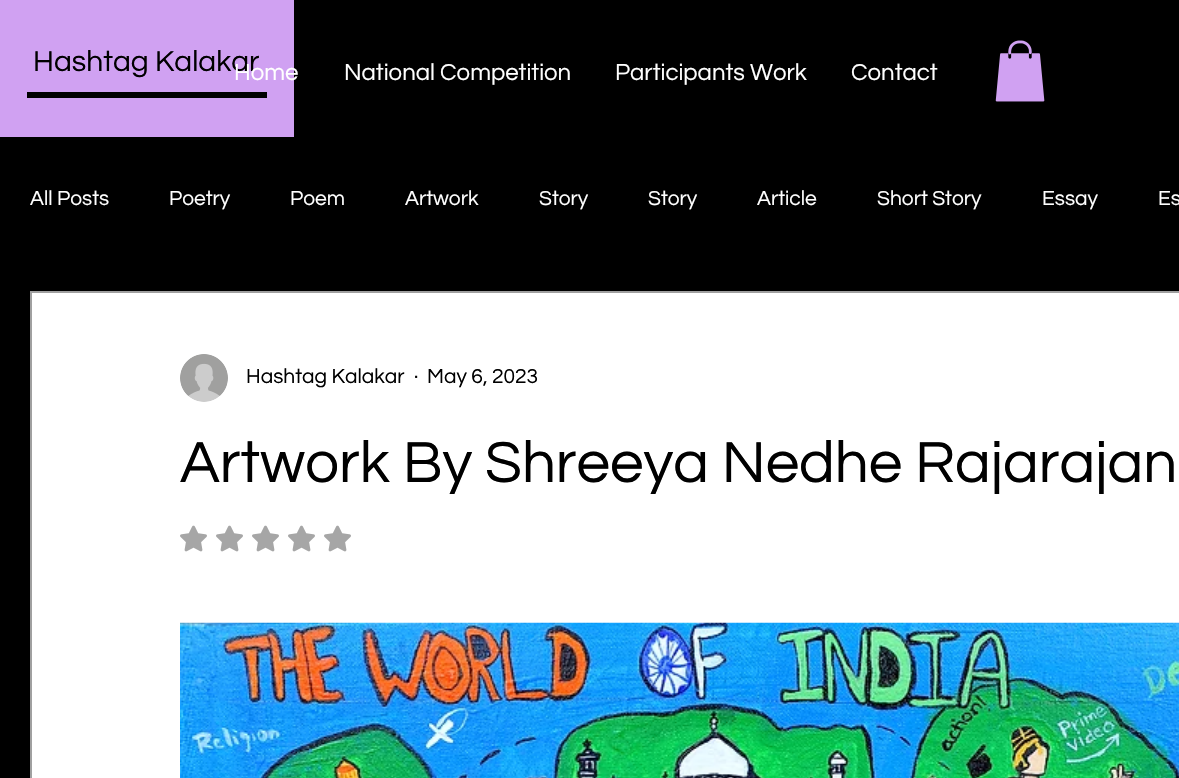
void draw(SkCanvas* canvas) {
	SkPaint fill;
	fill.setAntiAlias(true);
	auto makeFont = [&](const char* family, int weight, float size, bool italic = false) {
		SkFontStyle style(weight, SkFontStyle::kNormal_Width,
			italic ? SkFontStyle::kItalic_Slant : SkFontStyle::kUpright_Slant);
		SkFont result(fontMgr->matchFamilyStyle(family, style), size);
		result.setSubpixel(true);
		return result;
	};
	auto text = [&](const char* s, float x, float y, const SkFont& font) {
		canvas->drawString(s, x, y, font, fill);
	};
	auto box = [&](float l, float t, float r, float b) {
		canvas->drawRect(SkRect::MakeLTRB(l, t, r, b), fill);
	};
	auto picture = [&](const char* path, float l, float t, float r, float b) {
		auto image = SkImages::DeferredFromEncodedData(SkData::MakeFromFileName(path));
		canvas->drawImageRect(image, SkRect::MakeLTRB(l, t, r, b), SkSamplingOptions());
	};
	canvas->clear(0xFF000000);
	fill.setColor(0xFFD0A1F2);
	box(0, 0, 294, 137);
	fill.setColor(0xFF000000);
	box(27, 92, 267, 98);
	picture("image0.png", 995, 40, 1045, 102);
	fill.setColor(0xFFFFFFFF);
	canvas->drawRect(SkRect::MakeLTRB(31, 292, 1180, 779), fill);
	fill.setStyle(SkPaint::kStroke_Style);
	fill.setStrokeWidth(2);
	fill.setColor(0xFFA0A0A0);
	canvas->drawRect(SkRect::MakeLTRB(31, 292, 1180, 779), fill);
	picture("image1.png", 180, 354, 228, 402);
	picture("image2.png", 180, 525, 207, 552);
	picture("image2.png", 216, 525, 243, 552);
	picture("image2.png", 252, 525, 279, 552);
	picture("image2.png", 288, 525, 315, 552);
	picture("image2.png", 324, 525, 351, 552);
	picture("image3.png", 180, 622, 1179, 778);
	auto font1 = makeFont("Questrial", 400, 30);
	fill.setStyle(SkPaint::kFill_Style);
	fill.setColor(0xFF000000);
	text("Hashtag Kalakar", 33, 71, font1);
	auto font2 = makeFont("Questrial", 400, 24);
	fill.setColor(0xFFFFFFFF);
	text("Home", 234, 80, font2);
	text("National Competition", 344, 80, font2);
	text("Participants Work", 615, 80, font2);
	text("Contact", 851, 80, font2);
	auto font3 = makeFont("Questrial", 400, 21);
	text("All Posts", 30, 205, font3);
	text("Poetry", 169, 205, font3);
	text("Poem", 290, 205, font3);
	text("Artwork", 405, 205, font3);
	text("Story", 539, 205, font3);
	text("Story", 648, 205, font3);
	text("Article", 757, 205, font3);
	text("Short Story", 877, 205, font3);
	text("Essay", 1042, 205, font3);
	text("Es", 1158, 205, font3);
	fill.setColor(0xFF000000);
	text("Hashtag Kalakar", 246, 383, font3);
	text("·", 414, 383, font3);
	text("May 6, 2023", 427, 383, font3);
	auto font4 = makeFont("Questrial", 400, 60);
	text("Artwork By Shreeya Nedhe Rajarajan", 180, 482, font4);
}
